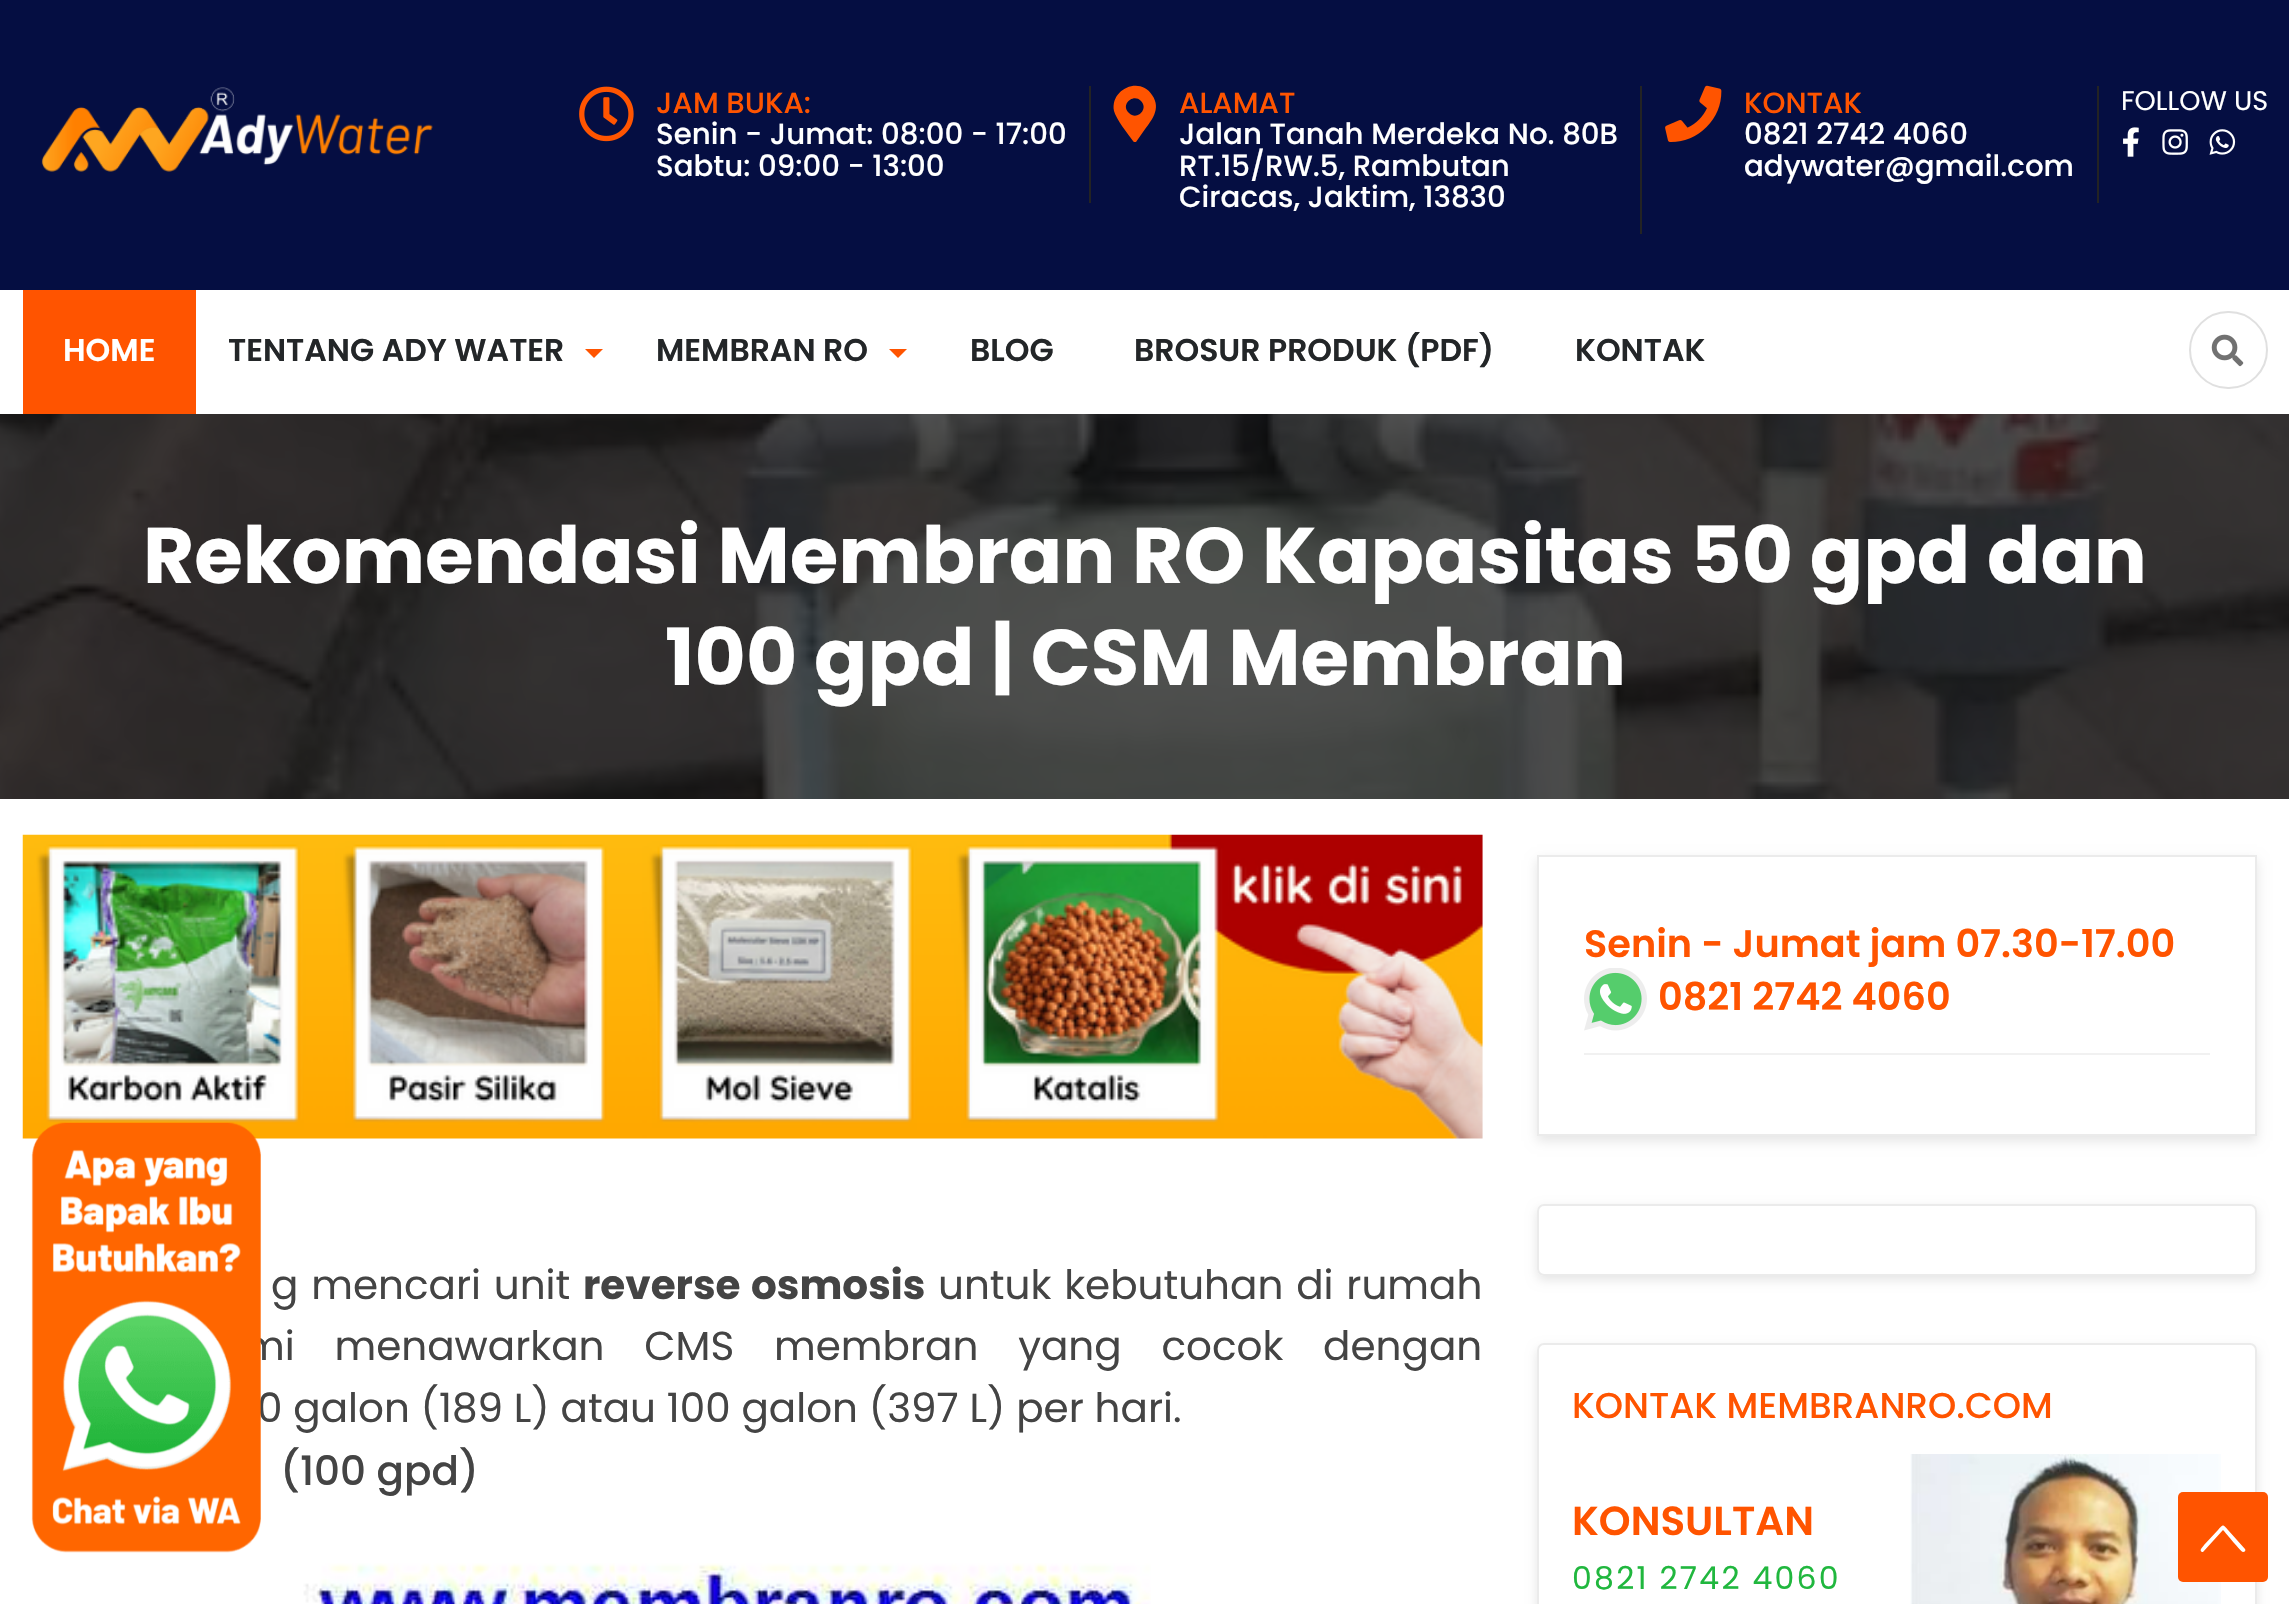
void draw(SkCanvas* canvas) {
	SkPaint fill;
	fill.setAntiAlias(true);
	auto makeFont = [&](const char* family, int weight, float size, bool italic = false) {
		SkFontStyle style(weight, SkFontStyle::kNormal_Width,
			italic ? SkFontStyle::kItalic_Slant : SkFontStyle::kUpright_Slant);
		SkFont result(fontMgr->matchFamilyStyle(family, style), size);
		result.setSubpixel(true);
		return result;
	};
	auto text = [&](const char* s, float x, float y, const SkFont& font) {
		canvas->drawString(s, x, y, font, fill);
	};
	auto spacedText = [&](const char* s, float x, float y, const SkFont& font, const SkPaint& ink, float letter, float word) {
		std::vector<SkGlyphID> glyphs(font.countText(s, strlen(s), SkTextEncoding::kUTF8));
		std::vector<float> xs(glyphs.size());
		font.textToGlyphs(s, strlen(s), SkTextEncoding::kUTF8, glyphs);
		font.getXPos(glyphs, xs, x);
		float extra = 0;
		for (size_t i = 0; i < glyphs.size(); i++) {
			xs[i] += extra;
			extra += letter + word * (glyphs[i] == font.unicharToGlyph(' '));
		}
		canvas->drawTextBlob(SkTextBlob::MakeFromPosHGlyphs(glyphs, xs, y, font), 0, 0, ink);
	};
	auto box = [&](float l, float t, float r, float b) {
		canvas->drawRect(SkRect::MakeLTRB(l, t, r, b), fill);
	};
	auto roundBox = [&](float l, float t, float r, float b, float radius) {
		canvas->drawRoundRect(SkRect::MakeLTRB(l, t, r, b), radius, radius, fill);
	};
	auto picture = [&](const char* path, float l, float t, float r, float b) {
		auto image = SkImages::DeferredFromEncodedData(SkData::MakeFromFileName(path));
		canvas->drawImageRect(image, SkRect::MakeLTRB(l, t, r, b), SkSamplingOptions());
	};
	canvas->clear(0xFFFFFFFF);
	fill.setColor(0xFF050E42);
	box(0, 0, 2289, 290);
	picture("image0.png", 41, 87, 433, 172);
	fill.setColor(0xFF232323);
	box(1089, 86, 1091, 203);
	picture("image1.png", 579, 86, 634, 142);
	box(1640, 86, 1642, 234);
	fill.setColor(0xFFFF5400);
	canvas->drawPath(SkPathBuilder().moveTo(1133, 141).cubicTo(1128, 134, 1116, 119, 1114, 111).cubicTo(1110, 89, 1140, 76, 1152, 95).cubicTo(1162, 109, 1151, 121, 1143, 132).lineTo(1136, 142).cubicTo(1135, 142, 1133, 142, 1133, 141).close().moveTo(1129, 113).cubicTo(1137, 121, 1149, 109, 1141, 101).cubicTo(1133, 93, 1120, 105, 1129, 113).close().detach(), fill);
	fill.setColor(0xFF232323);
	box(2097, 86, 2099, 203);
	picture("image2.png", 1665, 85, 1722, 142);
	picture("image3.png", 2123, 127, 2139, 157);
	picture("image4.png", 2162, 129, 2188, 155);
	picture("image5.png", 2209, 129, 2236, 155);
	fill.setColor(0xFFFF5400);
	box(23, 290, 196, 414);
	canvas->drawPath(SkPathBuilder().moveTo(585, 349).lineTo(603, 349).lineTo(594, 358).close().detach(), fill);
	canvas->drawPath(SkPathBuilder().moveTo(889, 349).lineTo(907, 349).lineTo(898, 358).close().detach(), fill);
	fill.setStyle(SkPaint::kStroke_Style);
	fill.setStrokeWidth(2);
	fill.setColor(0xFFE0E0E0);
	canvas->drawRoundRect(SkRect::MakeLTRB(2190, 312, 2267, 388), 38, 38, fill);
	picture("image6.png", 2211, 334, 2244, 367);
	picture("image7.png", 0, 414, 2289, 799);
	picture("image9.png", 22, 834, 1483, 1139);
	picture("image10.png", 303, 1563, 1151, 1604);
	fill.setStyle(SkPaint::kFill_Style);
	fill.setColor(0x1A000000);
	fill.setMaskFilter(SkMaskFilter::MakeBlur(kNormal_SkBlurStyle, 5.5f));
	canvas->drawRect(SkRect::MakeLTRB(1537, 860, 2257, 1141), fill);
	fill.setMaskFilter(nullptr);
	fill.setColor(0xFFFFFFFF);
	canvas->drawRect(SkRect::MakeLTRB(1538, 856, 2256, 1135), fill);
	fill.setStyle(SkPaint::kStroke_Style);
	fill.setColor(0xFFEBEBEB);
	canvas->drawRect(SkRect::MakeLTRB(1538, 856, 2256, 1135), fill);
	fill.setStyle(SkPaint::kFill_Style);
	fill.setColor(0xFFF1F1F1);
	box(1584, 1053, 2210, 1055);
	picture("image11.png", 1584, 968, 1647, 1031);
	canvas->save();
	canvas->clipPath(SkPathBuilder(SkPathFillType::kEvenOdd).moveTo(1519, 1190).lineTo(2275, 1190).lineTo(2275, 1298).lineTo(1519, 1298).close().moveTo(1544, 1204).lineTo(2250, 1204).cubicTo(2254, 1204, 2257, 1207, 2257, 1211).lineTo(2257, 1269).cubicTo(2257, 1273, 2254, 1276, 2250, 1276).lineTo(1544, 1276).cubicTo(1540, 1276, 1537, 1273, 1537, 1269).lineTo(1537, 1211).cubicTo(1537, 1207, 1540, 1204, 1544, 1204).close().detach(), true);
	fill.setColor(0x1A000000);
	fill.setMaskFilter(SkMaskFilter::MakeBlur(kNormal_SkBlurStyle, 5.5f));
	canvas->drawRoundRect(SkRect::MakeLTRB(1537, 1208, 2257, 1280), 7, 7, fill);
	fill.setMaskFilter(nullptr);
	canvas->restore();
	fill.setStyle(SkPaint::kStroke_Style);
	fill.setColor(0xFFEBEBEB);
	canvas->drawRoundRect(SkRect::MakeLTRB(1538, 1205, 2256, 1275), 6, 6, fill);
	canvas->save();
	canvas->clipPath(SkPathBuilder(SkPathFillType::kEvenOdd).moveTo(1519, 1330).lineTo(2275, 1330).lineTo(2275, 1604).lineTo(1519, 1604).close().moveTo(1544, 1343).lineTo(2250, 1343).cubicTo(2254, 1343, 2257, 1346, 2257, 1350).lineTo(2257, 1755).cubicTo(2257, 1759, 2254, 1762, 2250, 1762).lineTo(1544, 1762).cubicTo(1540, 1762, 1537, 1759, 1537, 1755).lineTo(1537, 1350).cubicTo(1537, 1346, 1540, 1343, 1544, 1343).close().detach(), true);
	fill.setStyle(SkPaint::kFill_Style);
	fill.setColor(0x1A000000);
	fill.setMaskFilter(SkMaskFilter::MakeBlur(kNormal_SkBlurStyle, 5.5f));
	canvas->drawRoundRect(SkRect::MakeLTRB(1537, 1348, 2257, 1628), 7, 7, fill);
	fill.setMaskFilter(nullptr);
	canvas->restore();
	fill.setStyle(SkPaint::kStroke_Style);
	fill.setColor(0xFFEBEBEB);
	canvas->drawRoundRect(SkRect::MakeLTRB(1538, 1344, 2256, 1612), 6, 6, fill);
	picture("image12.png", 1910, 1454, 2221, 1604);
	fill.setStyle(SkPaint::kFill_Style);
	fill.setColor(0xFFFF5400);
	roundBox(2178, 1492, 2268, 1582, 5);
	fill.setColor(0xFFFFFFFF);
	canvas->drawPath(SkPathBuilder().moveTo(2245, 1549).lineTo(2228, 1530).cubicTo(2223, 1524, 2223, 1524, 2218, 1530).lineTo(2204, 1545).cubicTo(2204, 1546, 2198, 1550, 2202, 1552).lineTo(2203, 1552).lineTo(2223, 1530).cubicTo(2226, 1533, 2241, 1552, 2243, 1552).cubicTo(2245, 1552, 2246, 1550, 2245, 1549).close().detach(), fill);
	auto font1 = makeFont("Poppins", 500, 29.25f);
	fill.setColor(0xFFFF5400);
	text("JAM BUKA:", 656, 113, font1);
	fill.setColor(0xFFFFFFFF);
	text("Senin - Jumat: 08:00 - 17:00", 656, 144, font1);
	text("Sabtu: 09:00 - 13:00", 656, 176, font1);
	fill.setColor(0xFFFF5400);
	text("ALAMAT", 1179, 113, font1);
	fill.setColor(0xFFFFFFFF);
	text("Jalan Tanah Merdeka No. 80B", 1179, 144, font1);
	text("RT.15/RW.5, Rambutan", 1179, 176, font1);
	text("Ciracas, Jaktim, 13830", 1179, 207, font1);
	fill.setColor(0xFFFF5400);
	text("KONTAK", 1744, 113, font1);
	fill.setColor(0xFFFFFFFF);
	text("0821 2742 4060", 1744, 144, font1);
	text("adywater@gmail.com", 1744, 176, font1);
	auto font2 = makeFont("Poppins", 400, 27);
	text("FOLLOW US", 2121, 110, font2);
	auto font3 = makeFont("Poppins", 600, 31.5f);
	text("HOME", 63, 361, font3);
	fill.setColor(0xFF232628);
	text("TENTANG ADY WATER", 228, 361, font3);
	text("MEMBRAN RO", 656, 361, font3);
	text("BLOG", 970, 361, font3);
	text("BROSUR PRODUK (PDF)", 1134, 361, font3);
	text("KONTAK", 1575, 361, font3);
	auto font4 = makeFont("Poppins", 700, 78.75f);
	fill.setColor(0xFFFFFFFF);
	text("Rekomendasi Membran RO Kapasitas 50 gpd dan", 143, 583, font4);
	text("100 gpd | CSM Membran", 665, 685, font4);
	auto font5 = makeFont("Poppins", 400, 40.5f);
	fill.setColor(0xFF444444);
	spacedText("g mencari unit", 271, 1299, font5, fill, 0, 2);
	auto font6 = makeFont("Poppins", 700, 40.5f);
	spacedText("reverse osmosis", 583, 1299, font6, fill, 0, 2);
	spacedText("untuk kebutuhan di rumah", 938, 1299, font5, fill, 0, 2);
	spacedText("mi menawarkan CMS membran yang cocok dengan", 243, 1360, font5, fill, 0, 29);
	text("0 galon (189 L) atau 100 galon (397 L) per hari.", 257, 1422, font5);
	picture("image8.png", 31, 1122, 261, 1553);
	auto font7 = makeFont("Poppins", 500, 40.5f);
	text("(100 gpd)", 280, 1485, font7);
	auto font8 = makeFont("Poppins", 600, 38.25f);
	fill.setColor(0xFFFF5400);
	text("Senin - Jumat jam 07.30-17.00", 1584, 957, font8);
	text("0821 2742 4060", 1658, 1010, font8);
	auto font9 = makeFont("Poppins", 500, 36);
	text("KONTAK MEMBRANRO.COM", 1572, 1418, font9);
	auto font10 = makeFont("Poppins", 600, 40.5f);
	text("KONSULTAN", 1572, 1535, font10);
	auto font11 = makeFont("Poppins", 400, 31.5f);
	fill.setColor(0xFF20B73E);
	spacedText("0821 2742 4060", 1572, 1589, font11, fill, 2.25f, 0);
}
